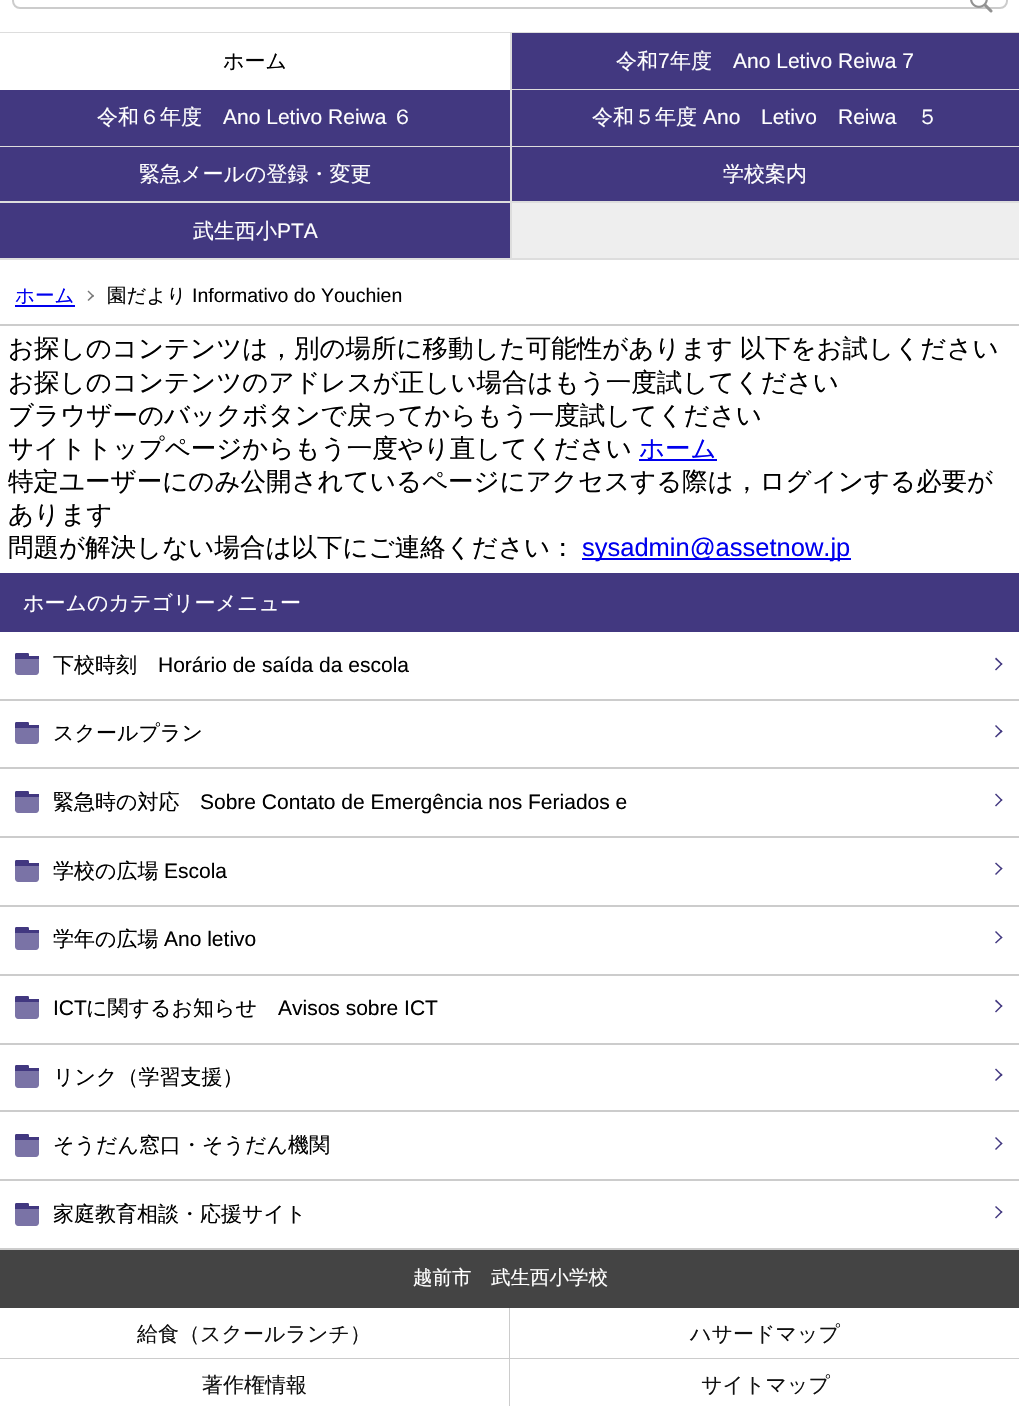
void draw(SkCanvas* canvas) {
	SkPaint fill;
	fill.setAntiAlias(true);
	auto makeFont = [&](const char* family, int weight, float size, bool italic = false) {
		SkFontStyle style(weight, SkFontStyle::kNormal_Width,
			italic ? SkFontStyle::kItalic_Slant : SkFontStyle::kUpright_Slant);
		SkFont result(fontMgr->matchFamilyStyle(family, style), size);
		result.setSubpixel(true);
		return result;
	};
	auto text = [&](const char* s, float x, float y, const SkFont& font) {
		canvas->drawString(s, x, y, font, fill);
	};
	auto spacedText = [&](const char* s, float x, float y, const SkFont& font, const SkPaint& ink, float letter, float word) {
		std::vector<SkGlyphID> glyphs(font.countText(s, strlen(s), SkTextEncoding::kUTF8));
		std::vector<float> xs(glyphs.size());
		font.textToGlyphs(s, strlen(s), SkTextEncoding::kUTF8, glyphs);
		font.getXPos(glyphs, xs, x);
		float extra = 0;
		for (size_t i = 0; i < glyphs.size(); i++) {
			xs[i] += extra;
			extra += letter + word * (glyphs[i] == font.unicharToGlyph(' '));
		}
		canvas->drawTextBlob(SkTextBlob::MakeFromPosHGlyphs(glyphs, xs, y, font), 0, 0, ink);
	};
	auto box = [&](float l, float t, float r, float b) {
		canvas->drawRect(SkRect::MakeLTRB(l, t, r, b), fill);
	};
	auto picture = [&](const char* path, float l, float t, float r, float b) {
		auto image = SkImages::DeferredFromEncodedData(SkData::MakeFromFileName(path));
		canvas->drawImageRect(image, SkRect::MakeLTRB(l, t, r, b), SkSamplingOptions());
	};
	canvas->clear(0xFFFFFFFF);
	fill.setStyle(SkPaint::kStroke_Style);
	fill.setStrokeWidth(2);
	fill.setColor(0xFFCCCCCC);
	canvas->drawRoundRect(SkRect::MakeLTRB(13, -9, 1007, 8), 7, 7, fill);
	picture("image0.png", 970, 0, 993, 13);
	fill.setStyle(SkPaint::kFill_Style);
	fill.setColor(0xFFEEEEEE);
	box(512, 203, 1019, 258);
	fill.setColor(0xFFDDDDDD);
	box(0, 32, 1019, 33);
	box(510, 89, 1019, 90);
	box(0, 146, 1019, 147);
	box(0, 201, 1019, 203);
	box(0, 258, 1019, 260);
	box(510, 33, 512, 260);
	fill.setColor(0xFF423880);
	box(512, 33, 1019, 89);
	box(0, 90, 510, 146);
	box(512, 90, 1019, 146);
	box(0, 147, 510, 201);
	box(512, 147, 1019, 201);
	box(0, 203, 510, 258);
	fill.setColor(0xFFCCCCCC);
	box(0, 324, 1019, 326);
	fill.setColor(0xFF0000EE);
	box(15, 305, 75, 307);
	fill.setColor(0xFF777777);
	canvas->drawPath(SkPathBuilder().moveTo(88.5f, 290.5f).lineTo(94, 296).lineTo(93, 297).lineTo(87.5f, 291.5f).close().detach(), fill);
	canvas->drawPath(SkPathBuilder().moveTo(93, 294.5f).lineTo(94, 296).lineTo(88.5f, 301).lineTo(87.5f, 300).close().detach(), fill);
	fill.setColor(0xFF0000EE);
	box(639, 459, 717, 461);
	box(582, 558, 851, 560);
	fill.setColor(0xFF423880);
	box(0, 573, 1019, 632);
	fill.setColor(0xFFCCCCCC);
	box(0, 1248, 1019, 1250);
	fill.setColor(0xFF423880);
	canvas->drawPath(SkPathBuilder().moveTo(16.5f, 653).lineTo(27.5f, 653).cubicTo(28.5f, 653, 29, 653.5f, 29, 654.5f).lineTo(29, 658).lineTo(15, 658).lineTo(15, 654.5f).cubicTo(15, 653.5f, 15.5f, 653, 16.5f, 653).close().detach(), fill);
	fill.setColor(0xB3423880);
	canvas->drawPath(SkPathBuilder().moveTo(15, 656).lineTo(37.5f, 656).cubicTo(38.5f, 656, 39, 656.5f, 39, 657.5f).lineTo(39, 672).cubicTo(39, 673.5f, 37.5f, 675, 36, 675).lineTo(18, 675).cubicTo(16.5f, 675, 15, 673.5f, 15, 672).close().detach(), fill);
	fill.setColor(0xFF423880);
	box(15, 656, 39, 659);
	canvas->drawPath(SkPathBuilder().moveTo(996, 657.5f).lineTo(1002.5f, 664).lineTo(1001.5f, 665).lineTo(995, 659).close().detach(), fill);
	canvas->drawPath(SkPathBuilder().moveTo(1001.5f, 663).lineTo(1002.5f, 664).lineTo(996, 670.5f).lineTo(995, 669.5f).close().detach(), fill);
	fill.setColor(0xFFCCCCCC);
	box(0, 699, 1019, 701);
	fill.setColor(0xFF423880);
	canvas->drawPath(SkPathBuilder().moveTo(16.5f, 722).lineTo(27.5f, 722).cubicTo(28.5f, 722, 29, 722.5f, 29, 723.5f).lineTo(29, 727).lineTo(15, 727).lineTo(15, 723.5f).cubicTo(15, 722.5f, 15.5f, 722, 16.5f, 722).close().detach(), fill);
	fill.setColor(0xB3423880);
	canvas->drawPath(SkPathBuilder().moveTo(15, 725).lineTo(37.5f, 725).cubicTo(38.5f, 725, 39, 725.5f, 39, 726.5f).lineTo(39, 741).cubicTo(39, 742.5f, 37.5f, 744, 36, 744).lineTo(18, 744).cubicTo(16.5f, 744, 15, 742.5f, 15, 741).close().detach(), fill);
	fill.setColor(0xFF423880);
	box(15, 725, 39, 728);
	canvas->drawPath(SkPathBuilder().moveTo(996, 725).lineTo(1002.5f, 731.5f).lineTo(1001.5f, 732.5f).lineTo(995, 726).close().detach(), fill);
	canvas->drawPath(SkPathBuilder().moveTo(1001.5f, 730).lineTo(1002.5f, 731.5f).lineTo(996, 737.5f).lineTo(995, 736.5f).close().detach(), fill);
	fill.setColor(0xFFCCCCCC);
	box(0, 767, 1019, 769);
	fill.setColor(0xFF423880);
	canvas->drawPath(SkPathBuilder().moveTo(16.5f, 791).lineTo(27.5f, 791).cubicTo(28.5f, 791, 29, 791.5f, 29, 792.5f).lineTo(29, 796).lineTo(15, 796).lineTo(15, 792.5f).cubicTo(15, 791.5f, 15.5f, 791, 16.5f, 791).close().detach(), fill);
	fill.setColor(0xB3423880);
	canvas->drawPath(SkPathBuilder().moveTo(15, 794).lineTo(37.5f, 794).cubicTo(38.5f, 794, 39, 794.5f, 39, 795.5f).lineTo(39, 810).cubicTo(39, 811.5f, 37.5f, 813, 36, 813).lineTo(18, 813).cubicTo(16.5f, 813, 15, 811.5f, 15, 810).close().detach(), fill);
	fill.setColor(0xFF423880);
	box(15, 794, 39, 797);
	canvas->drawPath(SkPathBuilder().moveTo(996, 793.5f).lineTo(1002.5f, 800).lineTo(1001.5f, 801).lineTo(995, 794.5f).close().detach(), fill);
	canvas->drawPath(SkPathBuilder().moveTo(1001.5f, 799).lineTo(1002.5f, 800).lineTo(996, 806.5f).lineTo(995, 805.5f).close().detach(), fill);
	fill.setColor(0xFFCCCCCC);
	box(0, 836, 1019, 838);
	fill.setColor(0xFF423880);
	canvas->drawPath(SkPathBuilder().moveTo(16.5f, 860).lineTo(27.5f, 860).cubicTo(28.5f, 860, 29, 860.5f, 29, 861.5f).lineTo(29, 865).lineTo(15, 865).lineTo(15, 861.5f).cubicTo(15, 860.5f, 15.5f, 860, 16.5f, 860).close().detach(), fill);
	fill.setColor(0xB3423880);
	canvas->drawPath(SkPathBuilder().moveTo(15, 863).lineTo(37.5f, 863).cubicTo(38.5f, 863, 39, 863.5f, 39, 864.5f).lineTo(39, 879).cubicTo(39, 880.5f, 37.5f, 882, 36, 882).lineTo(18, 882).cubicTo(16.5f, 882, 15, 880.5f, 15, 879).close().detach(), fill);
	fill.setColor(0xFF423880);
	box(15, 863, 39, 866);
	canvas->drawPath(SkPathBuilder().moveTo(996, 862.5f).lineTo(1002.5f, 868.5f).lineTo(1001.5f, 869.5f).lineTo(995, 863.5f).close().detach(), fill);
	canvas->drawPath(SkPathBuilder().moveTo(1001.5f, 867.5f).lineTo(1002.5f, 868.5f).lineTo(996, 875).lineTo(995, 874).close().detach(), fill);
	fill.setColor(0xFFCCCCCC);
	box(0, 905, 1019, 907);
	fill.setColor(0xFF423880);
	canvas->drawPath(SkPathBuilder().moveTo(16.5f, 927).lineTo(27.5f, 927).cubicTo(28.5f, 927, 29, 927.5f, 29, 928.5f).lineTo(29, 932).lineTo(15, 932).lineTo(15, 928.5f).cubicTo(15, 927.5f, 15.5f, 927, 16.5f, 927).close().detach(), fill);
	fill.setColor(0xB3423880);
	canvas->drawPath(SkPathBuilder().moveTo(15, 930).lineTo(37.5f, 930).cubicTo(38.5f, 930, 39, 930.5f, 39, 931.5f).lineTo(39, 947).cubicTo(39, 948.5f, 37.5f, 950, 36, 950).lineTo(18, 950).cubicTo(16.5f, 950, 15, 948.5f, 15, 947).close().detach(), fill);
	fill.setColor(0xFF423880);
	box(15, 930, 39, 933);
	canvas->drawPath(SkPathBuilder().moveTo(996, 931).lineTo(1002.5f, 937.5f).lineTo(1001.5f, 938.5f).lineTo(995, 932).close().detach(), fill);
	canvas->drawPath(SkPathBuilder().moveTo(1001.5f, 936.5f).lineTo(1002.5f, 937.5f).lineTo(996, 943.5f).lineTo(995, 942.5f).close().detach(), fill);
	fill.setColor(0xFFCCCCCC);
	box(0, 974, 1019, 976);
	fill.setColor(0xFF423880);
	canvas->drawPath(SkPathBuilder().moveTo(16.5f, 996).lineTo(27.5f, 996).cubicTo(28.5f, 996, 29, 996.5f, 29, 997.5f).lineTo(29, 1001).lineTo(15, 1001).lineTo(15, 997.5f).cubicTo(15, 996.5f, 15.5f, 996, 16.5f, 996).close().detach(), fill);
	fill.setColor(0xB3423880);
	canvas->drawPath(SkPathBuilder().moveTo(15, 999).lineTo(37.5f, 999).cubicTo(38.5f, 999, 39, 999.5f, 39, 1000.5f).lineTo(39, 1016).cubicTo(39, 1017.5f, 37.5f, 1019, 36, 1019).lineTo(18, 1019).cubicTo(16.5f, 1019, 15, 1017.5f, 15, 1016).close().detach(), fill);
	fill.setColor(0xFF423880);
	box(15, 999, 39, 1002);
	canvas->drawPath(SkPathBuilder().moveTo(996, 999.5f).lineTo(1002.5f, 1006).lineTo(1001.5f, 1007).lineTo(995, 1001).close().detach(), fill);
	canvas->drawPath(SkPathBuilder().moveTo(1001.5f, 1005).lineTo(1002.5f, 1006).lineTo(996, 1012.5f).lineTo(995, 1011.5f).close().detach(), fill);
	fill.setColor(0xFFCCCCCC);
	box(0, 1043, 1019, 1045);
	fill.setColor(0xFF423880);
	canvas->drawPath(SkPathBuilder().moveTo(16.5f, 1065).lineTo(27.5f, 1065).cubicTo(28.5f, 1065, 29, 1065.5f, 29, 1066.5f).lineTo(29, 1070).lineTo(15, 1070).lineTo(15, 1066.5f).cubicTo(15, 1065.5f, 15.5f, 1065, 16.5f, 1065).close().detach(), fill);
	fill.setColor(0xB3423880);
	canvas->drawPath(SkPathBuilder().moveTo(15, 1068).lineTo(37.5f, 1068).cubicTo(38.5f, 1068, 39, 1068.5f, 39, 1069.5f).lineTo(39, 1085).cubicTo(39, 1086.5f, 37.5f, 1088, 36, 1088).lineTo(18, 1088).cubicTo(16.5f, 1088, 15, 1086.5f, 15, 1085).close().detach(), fill);
	fill.setColor(0xFF423880);
	box(15, 1068, 39, 1071);
	canvas->drawPath(SkPathBuilder().moveTo(996, 1068.5f).lineTo(1002.5f, 1075).lineTo(1001.5f, 1076).lineTo(995, 1069.5f).close().detach(), fill);
	canvas->drawPath(SkPathBuilder().moveTo(1001.5f, 1073.5f).lineTo(1002.5f, 1075).lineTo(996, 1081).lineTo(995, 1080).close().detach(), fill);
	fill.setColor(0xFFCCCCCC);
	box(0, 1110, 1019, 1112);
	fill.setColor(0xFF423880);
	canvas->drawPath(SkPathBuilder().moveTo(16.5f, 1134).lineTo(27.5f, 1134).cubicTo(28.5f, 1134, 29, 1134.5f, 29, 1135.5f).lineTo(29, 1139).lineTo(15, 1139).lineTo(15, 1135.5f).cubicTo(15, 1134.5f, 15.5f, 1134, 16.5f, 1134).close().detach(), fill);
	fill.setColor(0xB3423880);
	canvas->drawPath(SkPathBuilder().moveTo(15, 1137).lineTo(37.5f, 1137).cubicTo(38.5f, 1137, 39, 1137.5f, 39, 1138.5f).lineTo(39, 1154).cubicTo(39, 1155.5f, 37.5f, 1157, 36, 1157).lineTo(18, 1157).cubicTo(16.5f, 1157, 15, 1155.5f, 15, 1154).close().detach(), fill);
	fill.setColor(0xFF423880);
	box(15, 1137, 39, 1140);
	canvas->drawPath(SkPathBuilder().moveTo(996, 1137).lineTo(1002.5f, 1143.5f).lineTo(1001.5f, 1144.5f).lineTo(995, 1138).close().detach(), fill);
	canvas->drawPath(SkPathBuilder().moveTo(1001.5f, 1142.5f).lineTo(1002.5f, 1143.5f).lineTo(996, 1150).lineTo(995, 1149).close().detach(), fill);
	fill.setColor(0xFFCCCCCC);
	box(0, 1179, 1019, 1181);
	fill.setColor(0xFF423880);
	canvas->drawPath(SkPathBuilder().moveTo(16.5f, 1203).lineTo(27.5f, 1203).cubicTo(28.5f, 1203, 29, 1203.5f, 29, 1204.5f).lineTo(29, 1208).lineTo(15, 1208).lineTo(15, 1204.5f).cubicTo(15, 1203.5f, 15.5f, 1203, 16.5f, 1203).close().detach(), fill);
	fill.setColor(0xB3423880);
	canvas->drawPath(SkPathBuilder().moveTo(15, 1206).lineTo(37.5f, 1206).cubicTo(38.5f, 1206, 39, 1206.5f, 39, 1207.5f).lineTo(39, 1223).cubicTo(39, 1224.5f, 37.5f, 1226, 36, 1226).lineTo(18, 1226).cubicTo(16.5f, 1226, 15, 1224.5f, 15, 1223).close().detach(), fill);
	fill.setColor(0xFF423880);
	box(15, 1206, 39, 1209);
	canvas->drawPath(SkPathBuilder().moveTo(996, 1206).lineTo(1002.5f, 1212).lineTo(1001.5f, 1213).lineTo(995, 1207).close().detach(), fill);
	canvas->drawPath(SkPathBuilder().moveTo(1001.5f, 1211).lineTo(1002.5f, 1212).lineTo(996, 1218.5f).lineTo(995, 1217.5f).close().detach(), fill);
	fill.setColor(0xFF444444);
	box(0, 1250, 1019, 1308);
	fill.setColor(0xFFCCCCCC);
	box(509, 1308, 510, 1406);
	box(0, 1358, 1019, 1359);
	auto font1 = makeFont("WenQuanYi Zen Hei", 500, 21);
	fill.setColor(0xFF000000);
	text("ホーム", 223, 68, font1);
	fill.setColor(0xFFFFFFFF);
	text("令和", 616, 68, font1);
	auto font2 = makeFont("Liberation Sans", 400, 21);
	text("7", 658, 68, font2);
	text("年度", 670, 68, font1);
	text("Ano Letivo Reiwa 7", 733, 68, font2);
	text("令和６年度", 97, 124, font1);
	text("Ano Letivo Reiwa", 223, 124, font2);
	text("６", 392, 124, font1);
	text("令和５年度", 592, 124, font1);
	text("Ano", 703, 124, font2);
	text("Letivo", 761, 124, font2);
	text("Reiwa", 838, 124, font2);
	text("５", 917, 124, font1);
	text("緊急メールの登録・変更", 139, 181, font1);
	text("学校案内", 723, 181, font1);
	text("武生西小", 193, 238, font1);
	text("PTA", 277, 238, font2);
	auto font3 = makeFont("WenQuanYi Zen Hei", 500, 19.5f);
	fill.setColor(0xFF0000EE);
	text("ホーム", 15, 302, font3);
	fill.setColor(0xFF000000);
	text("園だより", 107, 302, font3);
	auto font4 = makeFont("Liberation Sans", 400, 19.5f);
	text("Informativo do Youchien", 192, 302, font4);
	auto font5 = makeFont("WenQuanYi Zen Hei", 500, 25.5f);
	spacedText("お探しのコンテンツは，別の場所に移動した可能性があります 以下をお試しください", 8, 357, font5, fill, 0, -1);
	text("お探しのコンテンツのアドレスが正しい場合はもう一度試してください", 8, 391, font5);
	text("ブラウザーのバックボタンで戻ってからもう一度試してください", 8, 424, font5);
	text("サイトトップページからもう一度やり直してください", 8, 457, font5);
	fill.setColor(0xFF0000EE);
	text("ホーム", 639, 457, font5);
	fill.setColor(0xFF000000);
	text("特定ユーザーにのみ公開されているページにアクセスする際は，ログインする必要が", 8, 490, font5);
	text("あります", 8, 523, font5);
	text("問題が解決しない場合は以下にご連絡ください：", 8, 556, font5);
	auto font6 = makeFont("Liberation Sans", 400, 25.5f);
	fill.setColor(0xFF0000EE);
	text("sysadmin@assetnow.jp", 582, 556, font6);
	fill.setColor(0xFFFFFFFF);
	text("ホームのカテゴリーメニュー", 23, 610, font1);
	fill.setColor(0xFF000000);
	text("下校時刻", 53, 672, font1);
	text("Horário de saída da escola", 158, 672, font2);
	text("スクールプラン", 53, 740, font1);
	text("緊急時の対応", 53, 809, font1);
	text("Sobre Contato de Emergência nos Feriados e", 200, 809, font2);
	text("学校の広場", 53, 878, font1);
	text("Escola", 164, 878, font2);
	text("学年の広場", 53, 946, font1);
	text("Ano letivo", 164, 946, font2);
	text("に関するお知らせ", 86, 1015, font1);
	text("ICT", 53, 1015, font2);
	text("Avisos sobre ICT", 278, 1015, font2);
	text("リンク（学習支援）", 53, 1084, font1);
	text("そうだん窓口・そうだん機関", 53, 1152, font1);
	text("家庭教育相談・応援サイト", 53, 1221, font1);
	fill.setColor(0xFFFFFFFF);
	text("越前市　武生西小学校", 413, 1284, font3);
	fill.setColor(0xFF111111);
	text("給食（スクールランチ）", 137, 1341, font1);
	text("ハサードマップ", 690, 1341, font1);
	text("著作権情報", 202, 1392, font1);
	text("サイトマップ", 701, 1392, font1);
}
